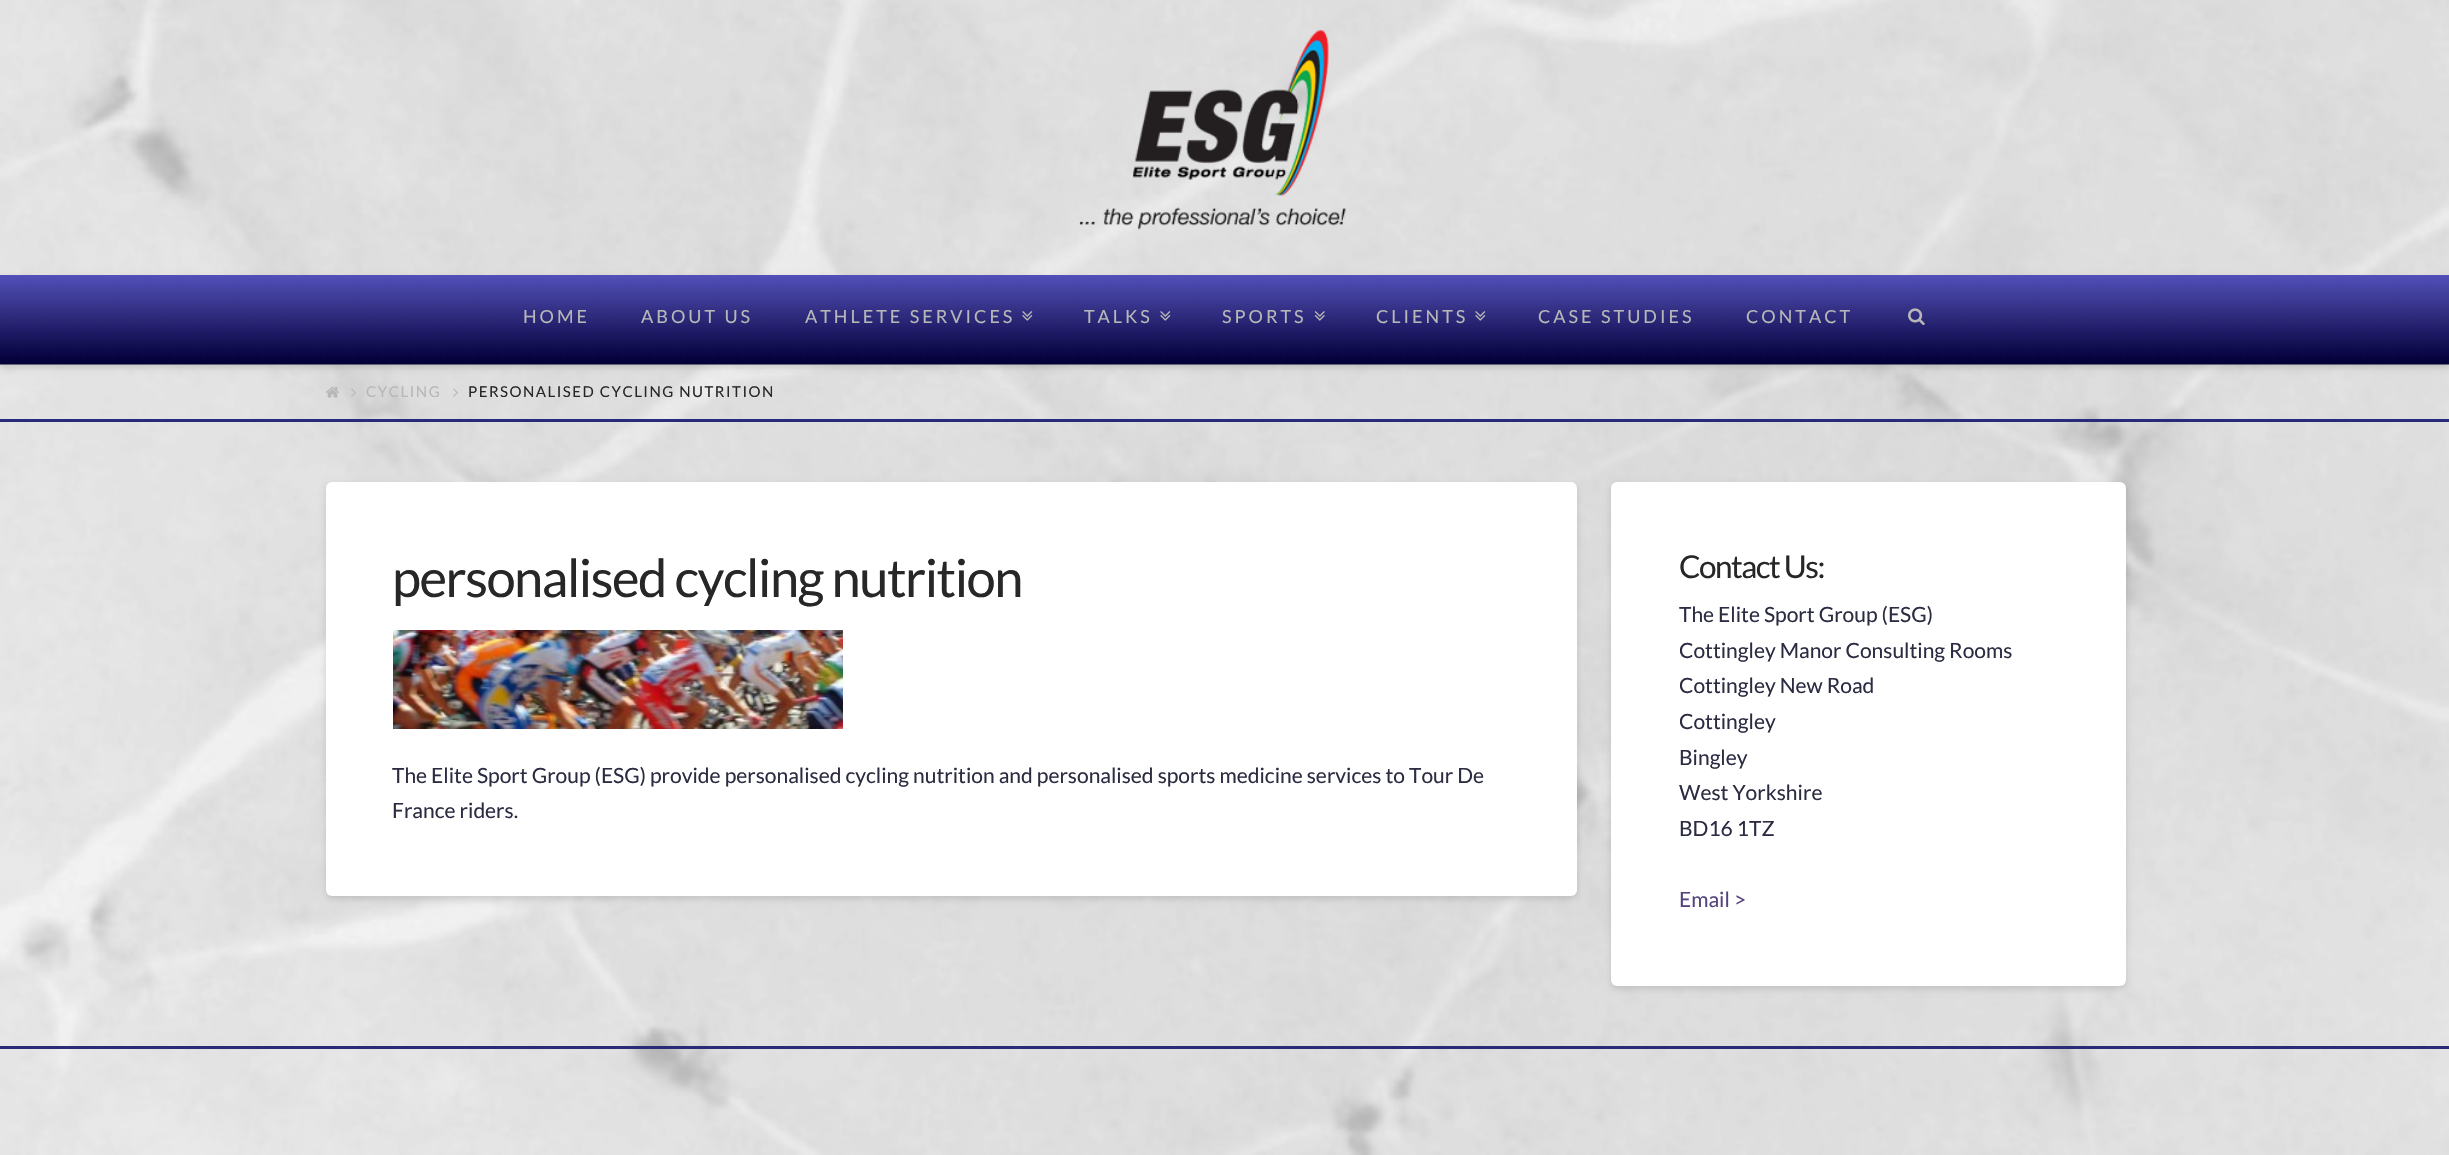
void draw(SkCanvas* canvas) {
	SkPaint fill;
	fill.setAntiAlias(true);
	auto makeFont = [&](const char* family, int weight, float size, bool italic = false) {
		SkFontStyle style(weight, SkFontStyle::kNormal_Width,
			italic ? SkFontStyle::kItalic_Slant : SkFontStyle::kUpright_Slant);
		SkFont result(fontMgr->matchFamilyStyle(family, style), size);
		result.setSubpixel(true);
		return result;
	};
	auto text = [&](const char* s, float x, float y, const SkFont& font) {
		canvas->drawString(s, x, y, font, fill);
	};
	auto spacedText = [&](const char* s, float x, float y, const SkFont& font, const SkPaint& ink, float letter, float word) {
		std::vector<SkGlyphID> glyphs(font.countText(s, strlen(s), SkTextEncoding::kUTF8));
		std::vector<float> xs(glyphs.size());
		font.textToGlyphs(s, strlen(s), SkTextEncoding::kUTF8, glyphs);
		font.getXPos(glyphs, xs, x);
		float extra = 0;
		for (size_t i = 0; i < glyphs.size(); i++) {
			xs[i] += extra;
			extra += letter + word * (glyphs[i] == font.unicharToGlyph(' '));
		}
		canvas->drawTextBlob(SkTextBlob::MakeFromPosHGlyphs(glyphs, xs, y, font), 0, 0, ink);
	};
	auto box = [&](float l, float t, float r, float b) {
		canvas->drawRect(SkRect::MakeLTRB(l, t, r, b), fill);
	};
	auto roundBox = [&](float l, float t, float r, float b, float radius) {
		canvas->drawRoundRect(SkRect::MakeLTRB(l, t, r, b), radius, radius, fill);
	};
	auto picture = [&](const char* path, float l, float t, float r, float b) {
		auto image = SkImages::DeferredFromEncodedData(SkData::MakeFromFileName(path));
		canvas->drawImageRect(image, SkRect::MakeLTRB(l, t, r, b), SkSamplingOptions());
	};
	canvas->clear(0xFFFFFFFF);
	picture("image0.png", 0, 0, 2449, 1155);
	picture("image1.png", 1079, 30, 1346, 230);
	fill.setColor(0x21000000);
	fill.setMaskFilter(SkMaskFilter::MakeBlur(kNormal_SkBlurStyle, 3));
	canvas->drawRect(SkRect::MakeLTRB(0, 278, 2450, 368), fill);
	fill.setMaskFilter(nullptr);
	picture("image2.png", 0, 275, 2449, 365);
	picture("image3.png", 1022, 311, 1033, 321);
	picture("image4.png", 1160, 311, 1171, 321);
	picture("image5.png", 1314, 311, 1325, 321);
	picture("image6.png", 1475, 311, 1486, 321);
	picture("image7.png", 1908, 308, 1925, 325);
	fill.setColor(0xFF2A2A7A);
	box(0, 419, 2449, 422);
	picture("image8.png", 326, 386, 339, 398);
	picture("image9.png", 351, 388, 356, 397);
	picture("image10.png", 453, 388, 458, 397);
	fill.setColor(0x21000000);
	fill.setMaskFilter(SkMaskFilter::MakeBlur(kNormal_SkBlurStyle, 3.5f));
	canvas->drawRoundRect(SkRect::MakeLTRB(326, 485, 1577, 899), 6, 6, fill);
	fill.setMaskFilter(nullptr);
	fill.setColor(0xFFFFFFFF);
	roundBox(326, 482, 1577, 896, 6);
	picture("image11.png", 393, 630, 843, 729);
	fill.setColor(0x21000000);
	fill.setMaskFilter(SkMaskFilter::MakeBlur(kNormal_SkBlurStyle, 3.5f));
	canvas->drawRoundRect(SkRect::MakeLTRB(1611, 485, 2126, 989), 6, 6, fill);
	fill.setMaskFilter(nullptr);
	fill.setColor(0xFFFFFFFF);
	roundBox(1611, 482, 2126, 986, 6);
	fill.setColor(0xFF2A2A7A);
	box(0, 1046, 2449, 1049);
	auto font1 = makeFont("Lato", 400, 18);
	fill.setColor(0xFFB7B7B7);
	spacedText("HOME", 523, 323, font1, fill, 3, 0);
	spacedText("ABOUT US", 641, 323, font1, fill, 3, 0);
	spacedText("ATHLETE SERVICES", 805, 323, font1, fill, 3, 0);
	spacedText("TALKS", 1084, 323, font1, fill, 3, 0);
	spacedText("SPORTS", 1222, 323, font1, fill, 3, 0);
	spacedText("CLIENTS", 1376, 323, font1, fill, 3, 0);
	spacedText("CASE STUDIES", 1538, 323, font1, fill, 3, 0);
	spacedText("CONTACT", 1746, 323, font1, fill, 3, 0);
	auto font2 = makeFont("Lato", 400, 15);
	spacedText("CYCLING", 366, 397, font2, fill, 1.5f, 0);
	fill.setColor(0xFF272727);
	spacedText("PERSONALISED CYCLING NUTRITION", 468, 397, font2, fill, 1.5f, 0);
	auto font3 = makeFont("Lato", 400, 52.5f);
	spacedText("personalised cycling nutrition", 392, 597, font3, fill, -1.5f, 0);
	auto font4 = makeFont("Lato", 400, 21);
	fill.setColor(0xFF2B2C42);
	text("The Elite Sport Group (ESG) provide personalised cycling nutrition and personalised sports medicine services to Tour De", 392, 783, font4);
	text("France riders.", 392, 818, font4);
	auto font5 = makeFont("Lato", 400, 31.5f);
	fill.setColor(0xFF272727);
	spacedText("Contact Us:", 1679, 578, font5, fill, -1.5f, 0);
	fill.setColor(0xFF2B2C42);
	text("The Elite Sport Group (ESG)", 1679, 622, font4);
	text("Cottingley Manor Consulting Rooms", 1679, 658, font4);
	text("Cottingley New Road", 1679, 693, font4);
	text("Cottingley", 1679, 729, font4);
	text("Bingley", 1679, 765, font4);
	text("West Yorkshire", 1679, 800, font4);
	text("BD16 1TZ", 1679, 836, font4);
	fill.setColor(0xFF55457C);
	text("Email >", 1679, 907, font4);
}
